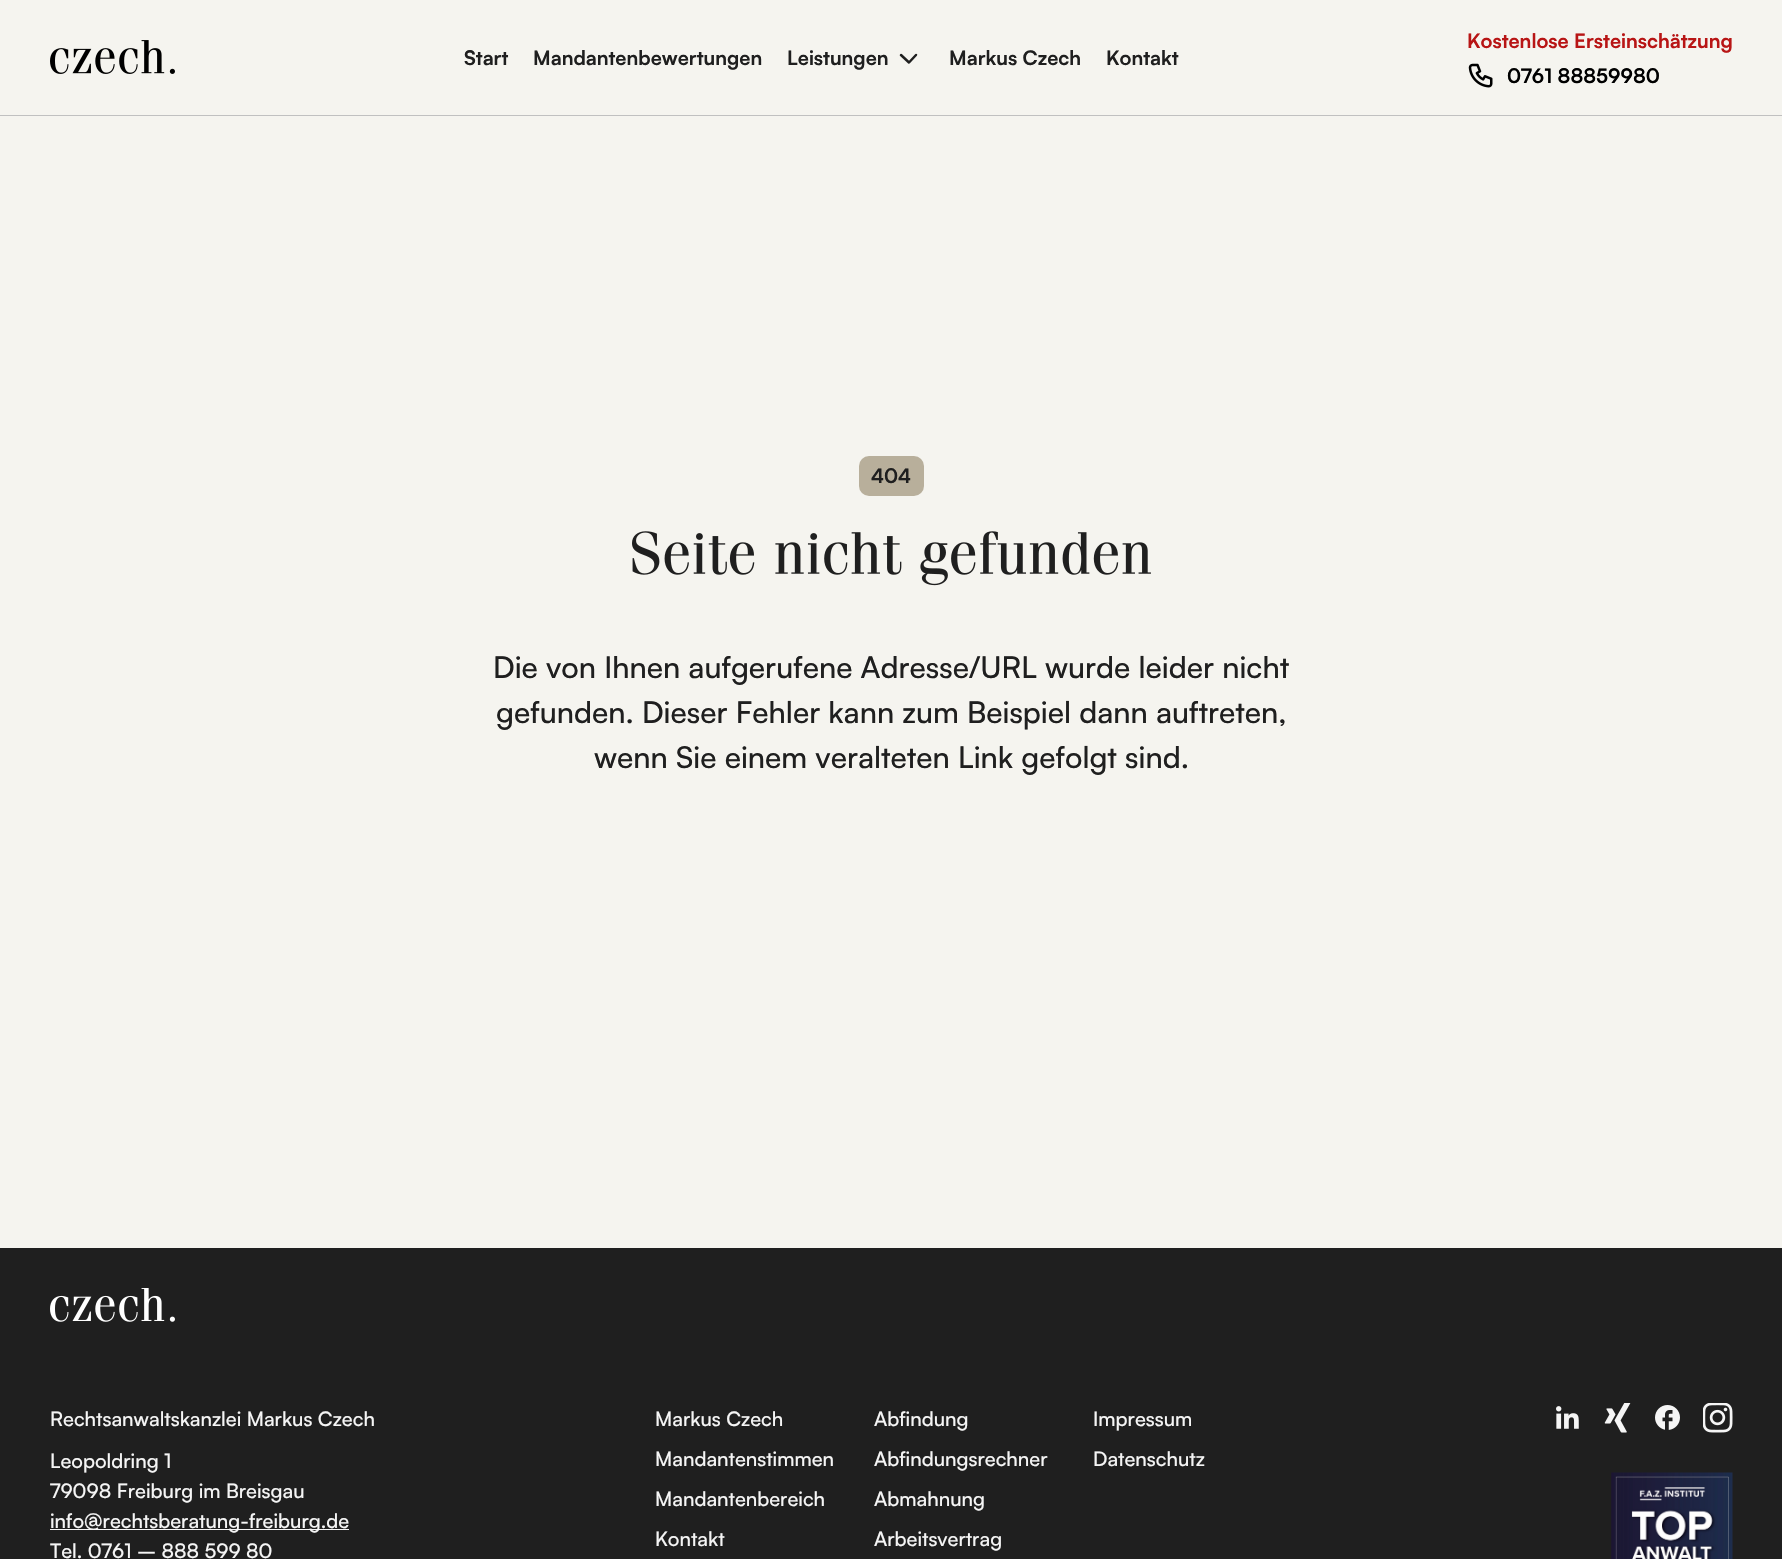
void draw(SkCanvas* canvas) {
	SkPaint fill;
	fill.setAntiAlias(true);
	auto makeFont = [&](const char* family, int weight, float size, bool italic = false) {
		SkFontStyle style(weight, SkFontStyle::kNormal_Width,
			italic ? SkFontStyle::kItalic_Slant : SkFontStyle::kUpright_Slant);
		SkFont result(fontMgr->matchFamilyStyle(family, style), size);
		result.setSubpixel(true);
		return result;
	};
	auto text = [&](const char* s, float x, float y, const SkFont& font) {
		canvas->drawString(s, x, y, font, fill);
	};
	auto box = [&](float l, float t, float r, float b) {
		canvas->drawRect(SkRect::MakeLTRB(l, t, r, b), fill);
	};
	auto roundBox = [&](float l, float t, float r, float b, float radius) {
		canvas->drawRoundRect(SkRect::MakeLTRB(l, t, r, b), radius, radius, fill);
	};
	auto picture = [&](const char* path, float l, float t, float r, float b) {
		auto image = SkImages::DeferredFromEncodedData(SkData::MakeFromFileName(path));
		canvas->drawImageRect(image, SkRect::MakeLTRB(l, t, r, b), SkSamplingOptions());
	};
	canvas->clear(0xFFF5F4EF);
	fill.setColor(0xFFC0C0C0);
	box(0, 115, 1782, 116);
	picture("image0.png", 50, 40, 175, 74);
	fill.setStyle(SkPaint::kStroke_Style);
	fill.setStrokeWidth(2.5f);
	fill.setStrokeCap(SkPaint::kRound_Cap);
	fill.setStrokeJoin(SkPaint::kRound_Join);
	fill.setColor(0xFF1F1F1F);
	canvas->drawPath(SkPathBuilder().moveTo(901, 55).lineTo(909, 62.5f).lineTo(916, 55).detach(), fill);
	picture("image1.png", 1468, 63, 1493, 88);
	fill.setStyle(SkPaint::kFill_Style);
	fill.setColor(0xFFB8AF9B);
	roundBox(859, 456, 924, 496, 10);
	picture("image2.png", 632, 531, 1151, 586);
	fill.setColor(0xFF1F1F1F);
	box(0, 1248, 1782, 1559);
	picture("image3.png", 50, 1288, 175, 1322);
	fill.setColor(0xFFF5F5F5);
	box(50, 1529, 349, 1530);
	picture("image4.png", 1556, 1406, 1579, 1429);
	picture("image5.png", 1604, 1403, 1631, 1433);
	picture("image6.png", 1655, 1405, 1680, 1430);
	picture("image7.png", 1703, 1403, 1733, 1433);
	picture("image8.png", 1611, 1472, 1733, 1559);
	auto font1 = makeFont("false", 700, 20);
	fill.setColor(0xFF1F1F1F);
	text("Start", 464, 65, font1);
	text("Mandantenbewertungen", 533, 65, font1);
	text("Leistungen", 787, 65, font1);
	text("Markus Czech", 949, 65, font1);
	text("Kontakt", 1106, 65, font1);
	fill.setColor(0xFFB81515);
	text("Kostenlose Ersteinschätzung", 1467, 48, font1);
	fill.setColor(0xFF000000);
	text("0761 88859980", 1507, 83, font1);
	fill.setColor(0xFF1F1F1F);
	text("404", 871, 483, font1);
	auto font2 = makeFont("Satoshi", 500, 30);
	text("Die von Ihnen aufgerufene Adresse/URL wurde leider nicht", 493, 678, font2);
	text("gefunden. Dieser Fehler kann zum Beispiel dann auftreten,", 496, 723, font2);
	text("wenn Sie einem veralteten Link gefolgt sind.", 594, 768, font2);
	auto font3 = makeFont("Satoshi", 500, 20);
	fill.setColor(0xFFF5F5F5);
	text("Rechtsanwaltskanzlei Markus Czech", 50, 1426, font3);
	text("Leopoldring 1", 50, 1468, font3);
	text("79098 Freiburg im Breisgau", 50, 1498, font3);
	text("info@rechtsberatung-freiburg.de", 50, 1528, font3);
	text("Tel. 0761 – 888 599 80", 50, 1558, font3);
	text("Markus Czech", 655, 1426, font3);
	text("Mandantenstimmen", 655, 1466, font3);
	text("Mandantenbereich", 655, 1506, font3);
	text("Kontakt", 655, 1546, font3);
	text("Abfindung", 874, 1426, font3);
	text("Abfindungsrechner", 874, 1466, font3);
	text("Abmahnung", 874, 1506, font3);
	text("Arbeitsvertrag", 874, 1546, font3);
	text("Impressum", 1093, 1426, font3);
	text("Datenschutz", 1093, 1466, font3);
}
